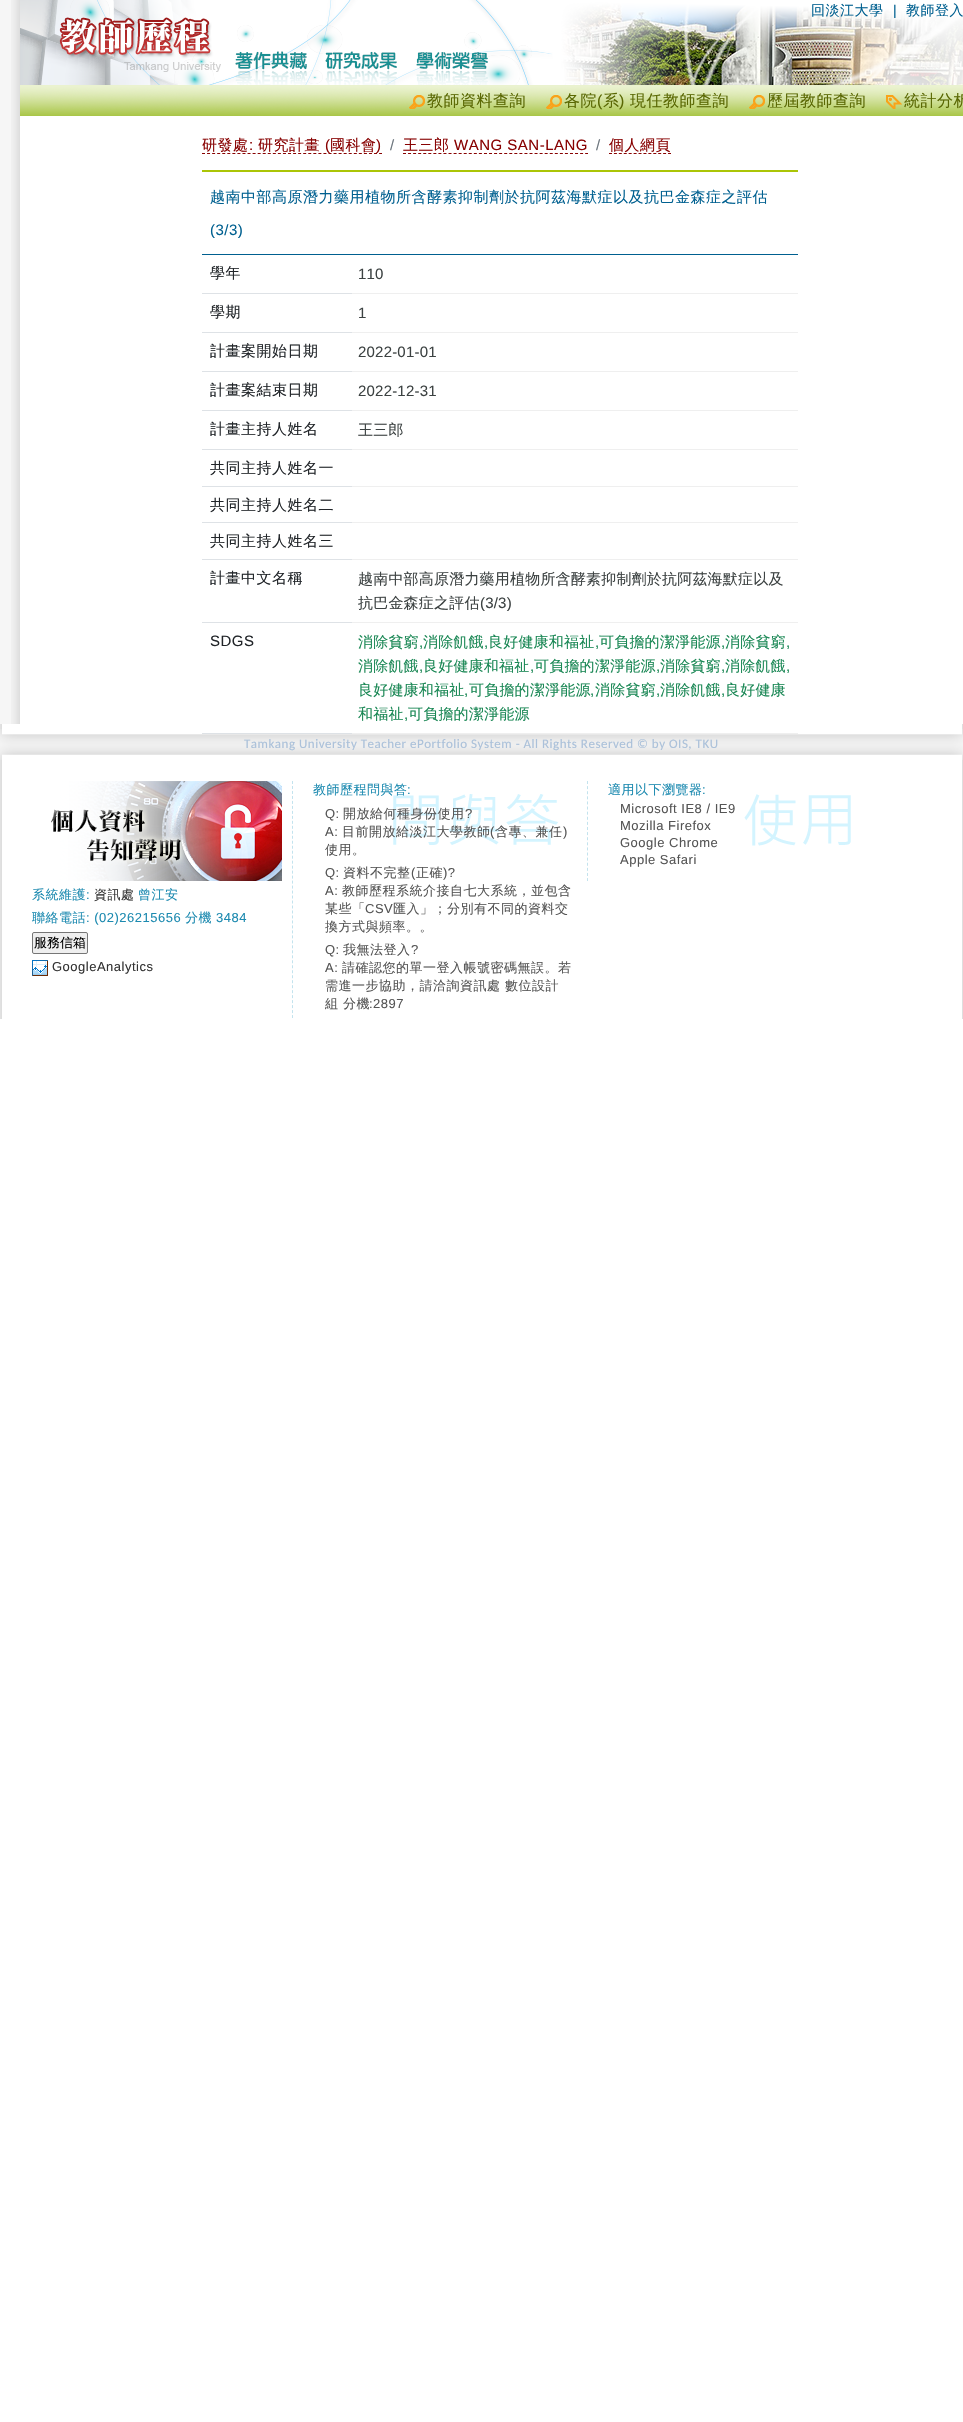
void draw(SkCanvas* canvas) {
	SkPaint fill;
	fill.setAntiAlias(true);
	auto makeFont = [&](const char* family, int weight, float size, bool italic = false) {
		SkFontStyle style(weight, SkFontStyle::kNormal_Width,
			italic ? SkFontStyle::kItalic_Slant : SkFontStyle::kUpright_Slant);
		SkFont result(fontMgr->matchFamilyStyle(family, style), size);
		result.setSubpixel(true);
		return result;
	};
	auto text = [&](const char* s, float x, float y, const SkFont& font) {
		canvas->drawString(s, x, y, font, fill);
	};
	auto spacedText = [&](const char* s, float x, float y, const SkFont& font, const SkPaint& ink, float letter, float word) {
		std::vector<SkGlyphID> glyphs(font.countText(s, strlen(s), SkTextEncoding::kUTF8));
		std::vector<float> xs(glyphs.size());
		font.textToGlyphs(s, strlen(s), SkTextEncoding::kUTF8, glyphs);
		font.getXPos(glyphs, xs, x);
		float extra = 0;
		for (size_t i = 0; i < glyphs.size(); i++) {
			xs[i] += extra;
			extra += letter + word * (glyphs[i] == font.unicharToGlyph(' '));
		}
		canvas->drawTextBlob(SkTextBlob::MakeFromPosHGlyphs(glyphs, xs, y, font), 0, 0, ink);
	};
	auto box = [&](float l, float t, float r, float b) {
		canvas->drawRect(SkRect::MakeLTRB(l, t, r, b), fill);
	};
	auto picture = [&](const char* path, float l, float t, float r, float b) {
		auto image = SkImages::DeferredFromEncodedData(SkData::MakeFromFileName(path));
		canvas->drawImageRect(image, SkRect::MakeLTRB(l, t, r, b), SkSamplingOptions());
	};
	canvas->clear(0xFFFFFFFF);
	fill.setColor(0xFFF6F6F6);
	box(0, 0, 11, 724);
	picture("image0.png", 11, 0, 20, 85);
	picture("image1.png", 20, 0, 963, 85);
	picture("image2.png", 11, 85, 963, 116);
	picture("image3.png", 409, 95, 425, 109);
	picture("image4.png", 546, 95, 562, 109);
	picture("image5.png", 749, 95, 765, 109);
	picture("image6.png", 886, 95, 902, 109);
	picture("image7.png", 11, 116, 963, 724);
	fill.setStyle(SkPaint::kStroke_Style);
	fill.setStrokeWidth(1);
	fill.setColor(0xFF880202);
	fill.setPathEffect(SkDashPathEffect::Make({{3, 2.06f}}, 0));
	canvas->drawPath(SkPathBuilder().moveTo(202, 153.5f).lineTo(382, 153.5f).detach(), fill);
	fill.setPathEffect(nullptr);
	fill.setPathEffect(SkDashPathEffect::Make({{3, 2.06f}}, 0));
	canvas->drawPath(SkPathBuilder().moveTo(403, 153.5f).lineTo(588, 153.5f).detach(), fill);
	fill.setPathEffect(nullptr);
	fill.setPathEffect(SkDashPathEffect::Make({{3, 1.92f}}, 0));
	canvas->drawPath(SkPathBuilder().moveTo(609, 153.5f).lineTo(671, 153.5f).detach(), fill);
	fill.setPathEffect(nullptr);
	fill.setStyle(SkPaint::kFill_Style);
	fill.setColor(0xFF006090);
	box(202, 254, 798, 255);
	fill.setColor(0xFFABC507);
	box(202, 170, 798, 172);
	fill.setColor(0xFFEFEFEF);
	box(351, 293, 798, 294);
	fill.setColor(0xFFDEE2E6);
	box(202, 293, 352, 294);
	fill.setColor(0xFFEFEFEF);
	box(351, 332, 798, 333);
	fill.setColor(0xFFDEE2E6);
	box(202, 332, 352, 333);
	fill.setColor(0xFFEFEFEF);
	box(351, 371, 798, 372);
	fill.setColor(0xFFDEE2E6);
	box(202, 371, 352, 372);
	fill.setColor(0xFFEFEFEF);
	box(351, 410, 798, 411);
	fill.setColor(0xFFDEE2E6);
	box(202, 410, 352, 411);
	fill.setColor(0xFFEFEFEF);
	box(351, 449, 798, 450);
	fill.setColor(0xFFDEE2E6);
	box(202, 449, 352, 450);
	fill.setColor(0xFFEFEFEF);
	box(351, 486, 798, 487);
	fill.setColor(0xFFDEE2E6);
	box(202, 486, 352, 487);
	fill.setColor(0xFFEFEFEF);
	box(351, 522, 798, 523);
	fill.setColor(0xFFDEE2E6);
	box(202, 522, 352, 523);
	fill.setColor(0xFFEFEFEF);
	box(351, 559, 798, 560);
	fill.setColor(0xFFDEE2E6);
	box(202, 559, 352, 560);
	fill.setColor(0xFFEFEFEF);
	box(351, 622, 798, 623);
	fill.setColor(0xFFDEE2E6);
	box(202, 622, 352, 623);
	picture("image8.png", 0, 724, 963, 1019);
	picture("image9.png", 0, 729, 963, 760);
	fill.setColor(0xFFEFEFEF);
	box(351, 733, 798, 734);
	fill.setColor(0xFFDEE2E6);
	box(202, 733, 352, 734);
	picture("image10.png", 393, 794, 558, 845);
	fill.setStyle(SkPaint::kStroke_Style);
	fill.setColor(0xFFC3E3EE);
	fill.setPathEffect(SkDashPathEffect::Make({{3, 1.98f}}, 0));
	canvas->drawPath(SkPathBuilder().moveTo(292.5f, 781).lineTo(292.5f, 1018).detach(), fill);
	fill.setPathEffect(nullptr);
	picture("image11.png", 744, 794, 851, 846);
	fill.setPathEffect(SkDashPathEffect::Make({{3, 2.11f}}, 0));
	canvas->drawPath(SkPathBuilder().moveTo(587.5f, 781).lineTo(587.5f, 881).detach(), fill);
	fill.setPathEffect(nullptr);
	picture("image12.png", 51, 781, 282, 881);
	fill.setStyle(SkPaint::kFill_Style);
	fill.setColor(0xFFEFEFEF);
	canvas->drawRoundRect(SkRect::MakeLTRB(32.5f, 932.5f, 87.5f, 953.5f), 1.5f, 1.5f, fill);
	fill.setStyle(SkPaint::kStroke_Style);
	fill.setColor(0xFF767676);
	canvas->drawRoundRect(SkRect::MakeLTRB(32.5f, 932.5f, 87.5f, 953.5f), 1.5f, 1.5f, fill);
	picture("image13.png", 32, 960, 48, 976);
	auto font1 = makeFont("WenQuanYi Zen Hei", 500, 14);
	fill.setStyle(SkPaint::kFill_Style);
	fill.setColor(0xFF006090);
	spacedText("回淡江大學", 811, 15, font1, fill, 0.5f, 0);
	auto font2 = makeFont("Liberation Sans", 400, 14);
	spacedText("|", 893, 15, font2, fill, 0.5f, 0);
	spacedText("教師登入", 906, 15, font1, fill, 0.5f, 0);
	auto font3 = makeFont("WenQuanYi Zen Hei", 500, 16);
	fill.setColor(0xFF5A6803);
	spacedText("教師資料查詢", 427, 106, font3, fill, 0.5f, 0);
	spacedText("各院", 564, 106, font3, fill, 0.5f, 0);
	auto font4 = makeFont("Liberation Sans", 400, 16);
	spacedText("(", 597, 106, font4, fill, 0.5f, 0);
	spacedText("系", 603, 106, font3, fill, 0.5f, 0);
	spacedText(")", 619, 106, font4, fill, 0.5f, 0);
	spacedText("現任教師查詢", 630, 106, font3, fill, 0.5f, 0);
	spacedText("歷屆教師查詢", 767, 106, font3, fill, 0.5f, 0);
	spacedText("統計分析", 904, 106, font3, fill, 0.5f, 0);
	auto font5 = makeFont("WenQuanYi Zen Hei", 500, 15);
	fill.setColor(0xFF880202);
	spacedText("研發處", 202, 150, font5, fill, 0.5f, 0);
	auto font6 = makeFont("Liberation Sans", 400, 15);
	spacedText(":", 249, 150, font6, fill, 0.5f, 0);
	spacedText("研究計畫", 258, 150, font5, fill, 0.5f, 0);
	spacedText("(", 325, 150, font6, fill, 0.5f, 0);
	spacedText("國科會", 330, 150, font5, fill, 0.5f, 0);
	spacedText(")", 376, 150, font6, fill, 0.5f, 0);
	fill.setColor(0xFF6C757D);
	spacedText("/", 390, 150, font6, fill, 0.5f, 0);
	fill.setColor(0xFF880202);
	spacedText("王三郎", 403, 150, font5, fill, 0.5f, 0);
	spacedText("WANG SAN-LANG", 454, 150, font6, fill, 0.5f, 0);
	fill.setColor(0xFF6C757D);
	spacedText("/", 596, 150, font6, fill, 0.5f, 0);
	fill.setColor(0xFF880202);
	spacedText("個人網頁", 609, 150, font5, fill, 0.5f, 0);
	fill.setColor(0xFF006090);
	spacedText("越南中部高原潛力藥用植物所含酵素抑制劑於抗阿茲海默症以及抗巴金森症之評估", 210, 202, font5, fill, 0.5f, 0);
	spacedText("(3/3)", 210, 235, font6, fill, 0.5f, 0);
	fill.setColor(0xFF212529);
	spacedText("學年", 210, 278, font5, fill, 0.5f, 0);
	fill.setColor(0xFF3C4242);
	spacedText("110", 358, 279, font6, fill, 0.2f, 0);
	fill.setColor(0xFF212529);
	spacedText("學期", 210, 317, font5, fill, 0.5f, 0);
	fill.setColor(0xFF3C4242);
	spacedText("1", 358, 318, font6, fill, 0.2f, 0);
	fill.setColor(0xFF212529);
	spacedText("計畫案開始日期", 210, 356, font5, fill, 0.5f, 0);
	fill.setColor(0xFF3C4242);
	spacedText("2022-01-01", 358, 357, font6, fill, 0.2f, 0);
	fill.setColor(0xFF212529);
	spacedText("計畫案結束日期", 210, 395, font5, fill, 0.5f, 0);
	fill.setColor(0xFF3C4242);
	spacedText("2022-12-31", 358, 396, font6, fill, 0.2f, 0);
	fill.setColor(0xFF212529);
	spacedText("計畫主持人姓名", 210, 434, font5, fill, 0.5f, 0);
	fill.setColor(0xFF3C4242);
	spacedText("王三郎", 358, 435, font5, fill, 0.2f, 0);
	fill.setColor(0xFF212529);
	spacedText("共同主持人姓名一", 210, 473, font5, fill, 0.5f, 0);
	spacedText("共同主持人姓名二", 210, 510, font5, fill, 0.5f, 0);
	spacedText("共同主持人姓名三", 210, 546, font5, fill, 0.5f, 0);
	spacedText("計畫中文名稱", 210, 583, font5, fill, 0.5f, 0);
	fill.setColor(0xFF3C4242);
	spacedText("越南中部高原潛力藥用植物所含酵素抑制劑於抗阿茲海默症以及", 358, 584, font5, fill, 0.2f, 0);
	spacedText("抗巴金森症之評估", 358, 608, font5, fill, 0.2f, 0);
	spacedText("(3/3)", 480, 608, font6, fill, 0.2f, 0);
	fill.setColor(0xFF212529);
	spacedText("SDGS", 210, 646, font6, fill, 0.5f, 0);
	fill.setColor(0xFF198754);
	spacedText("消除貧窮", 358, 647, font5, fill, 0.2f, 0);
	spacedText(",", 419, 647, font6, fill, 0.2f, 0);
	spacedText("消除飢餓", 423, 647, font5, fill, 0.2f, 0);
	spacedText(",", 484, 647, font6, fill, 0.2f, 0);
	spacedText("良好健康和福祉", 488, 647, font5, fill, 0.2f, 0);
	spacedText(",", 595, 647, font6, fill, 0.2f, 0);
	spacedText("可負擔的潔淨能源", 599, 647, font5, fill, 0.2f, 0);
	spacedText(",", 721, 647, font6, fill, 0.2f, 0);
	spacedText("消除貧窮", 725, 647, font5, fill, 0.2f, 0);
	spacedText(",", 786, 647, font6, fill, 0.2f, 0);
	spacedText("消除飢餓", 358, 671, font5, fill, 0.2f, 0);
	spacedText(",", 419, 671, font6, fill, 0.2f, 0);
	spacedText("良好健康和福祉", 423, 671, font5, fill, 0.2f, 0);
	spacedText(",", 530, 671, font6, fill, 0.2f, 0);
	spacedText("可負擔的潔淨能源", 534, 671, font5, fill, 0.2f, 0);
	spacedText(",", 656, 671, font6, fill, 0.2f, 0);
	spacedText("消除貧窮", 660, 671, font5, fill, 0.2f, 0);
	spacedText(",", 721, 671, font6, fill, 0.2f, 0);
	spacedText("消除飢餓", 725, 671, font5, fill, 0.2f, 0);
	spacedText(",", 786, 671, font6, fill, 0.2f, 0);
	spacedText("良好健康和福祉", 358, 695, font5, fill, 0.2f, 0);
	spacedText(",", 464, 695, font6, fill, 0.2f, 0);
	spacedText("可負擔的潔淨能源", 469, 695, font5, fill, 0.2f, 0);
	spacedText(",", 590, 695, font6, fill, 0.2f, 0);
	spacedText("消除貧窮", 595, 695, font5, fill, 0.2f, 0);
	spacedText(",", 656, 695, font6, fill, 0.2f, 0);
	spacedText("消除飢餓", 660, 695, font5, fill, 0.2f, 0);
	spacedText(",", 721, 695, font6, fill, 0.2f, 0);
	spacedText("良好健康", 725, 695, font5, fill, 0.2f, 0);
	spacedText("和福祉", 358, 719, font5, fill, 0.2f, 0);
	spacedText(",", 404, 719, font6, fill, 0.2f, 0);
	spacedText("可負擔的潔淨能源", 408, 719, font5, fill, 0.2f, 0);
	auto font7 = makeFont("Carlito", 400, 13);
	fill.setColor(0xFFABC1DA);
	spacedText("Tamkang University Teacher ePortfolio System - All Rights Reserved © by OIS, TKU", 244, 748, font7, fill, 0.5f, 0);
	auto font8 = makeFont("WenQuanYi Zen Hei", 500, 13);
	fill.setColor(0xFF1C8AB0);
	spacedText("教師歷程問與答", 313, 794, font8, fill, 0.5f, 0);
	auto font9 = makeFont("Liberation Sans", 400, 13);
	spacedText(":", 407, 794, font9, fill, 0.5f, 0);
	fill.setColor(0xFF555555);
	spacedText("Q:", 325, 818, font9, fill, 0.5f, 0);
	spacedText("開放給何種身份使用", 343, 818, font8, fill, 0.5f, 0);
	spacedText("?", 465, 818, font9, fill, 0.5f, 0);
	spacedText("A:", 325, 836, font9, fill, 0.5f, 0);
	spacedText("目前開放給淡江大學教師", 342, 836, font8, fill, 0.5f, 0);
	spacedText("(", 490, 836, font9, fill, 0.5f, 0);
	spacedText("含專、兼任", 495, 836, font8, fill, 0.5f, 0);
	spacedText(")", 563, 836, font9, fill, 0.5f, 0);
	spacedText("使用。", 325, 854, font8, fill, 0.5f, 0);
	spacedText("Q:", 325, 877, font9, fill, 0.5f, 0);
	spacedText("資料不完整", 343, 877, font8, fill, 0.5f, 0);
	spacedText("(", 411, 877, font9, fill, 0.5f, 0);
	spacedText("正確", 416, 877, font8, fill, 0.5f, 0);
	spacedText(")?", 443, 877, font9, fill, 0.5f, 0);
	spacedText("A:", 325, 895, font9, fill, 0.5f, 0);
	spacedText("教師歷程系統介接自七大系統，並包含", 342, 895, font8, fill, 0.5f, 0);
	spacedText("某些「", 325, 913, font8, fill, 0.5f, 0);
	spacedText("CSV", 365, 913, font9, fill, 0.5f, 0);
	spacedText("匯入」；分別有不同的資料交", 393, 913, font8, fill, 0.5f, 0);
	spacedText("換方式與頻率。。", 325, 931, font8, fill, 0.5f, 0);
	spacedText("Q:", 325, 954, font9, fill, 0.5f, 0);
	spacedText("我無法登入", 343, 954, font8, fill, 0.5f, 0);
	spacedText("?", 411, 954, font9, fill, 0.5f, 0);
	spacedText("A:", 325, 972, font9, fill, 0.5f, 0);
	spacedText("請確認您的單一登入帳號密碼無誤。若", 342, 972, font8, fill, 0.5f, 0);
	spacedText("需進一步協助，請洽詢資訊處 數位設計", 325, 990, font8, fill, 0.5f, 0);
	spacedText("組 分機", 325, 1008, font8, fill, 0.5f, 0);
	spacedText(":2897", 369, 1008, font9, fill, 0.5f, 0);
	fill.setColor(0xFF1C8AB0);
	spacedText("適用以下瀏覽器", 608, 794, font8, fill, 0.5f, 0);
	spacedText(":", 702, 794, font9, fill, 0.5f, 0);
	fill.setColor(0xFF555555);
	spacedText("Microsoft IE8 / IE9", 620, 813, font9, fill, 0.5f, 0);
	spacedText("Mozilla Firefox", 620, 830, font9, fill, 0.5f, 0);
	spacedText("Google Chrome", 620, 847, font9, fill, 0.5f, 0);
	spacedText("Apple Safari", 620, 864, font9, fill, 0.5f, 0);
	fill.setColor(0xFF1C8AB0);
	spacedText("系統維護", 32, 899, font8, fill, 0.5f, 0);
	spacedText(":", 86, 899, font9, fill, 0.5f, 0);
	fill.setColor(0xFF333333);
	spacedText("資訊處", 94, 899, font8, fill, 0.5f, 0);
	fill.setColor(0xFF1C8AB0);
	spacedText("曾江安", 138, 899, font8, fill, 0.5f, 0);
	spacedText("聯絡電話", 32, 922, font8, fill, 0.5f, 0);
	spacedText(": (02)26215656", 86, 922, font9, fill, 0.5f, 0);
	spacedText("分機", 185, 922, font8, fill, 0.5f, 0);
	spacedText("3484", 216, 922, font9, fill, 0.5f, 0);
	fill.setColor(0xFF000000);
	text("服務信箱", 34, 947, font8);
	fill.setColor(0xFF333333);
	spacedText("GoogleAnalytics", 52, 971, font9, fill, 0.5f, 0);
}
